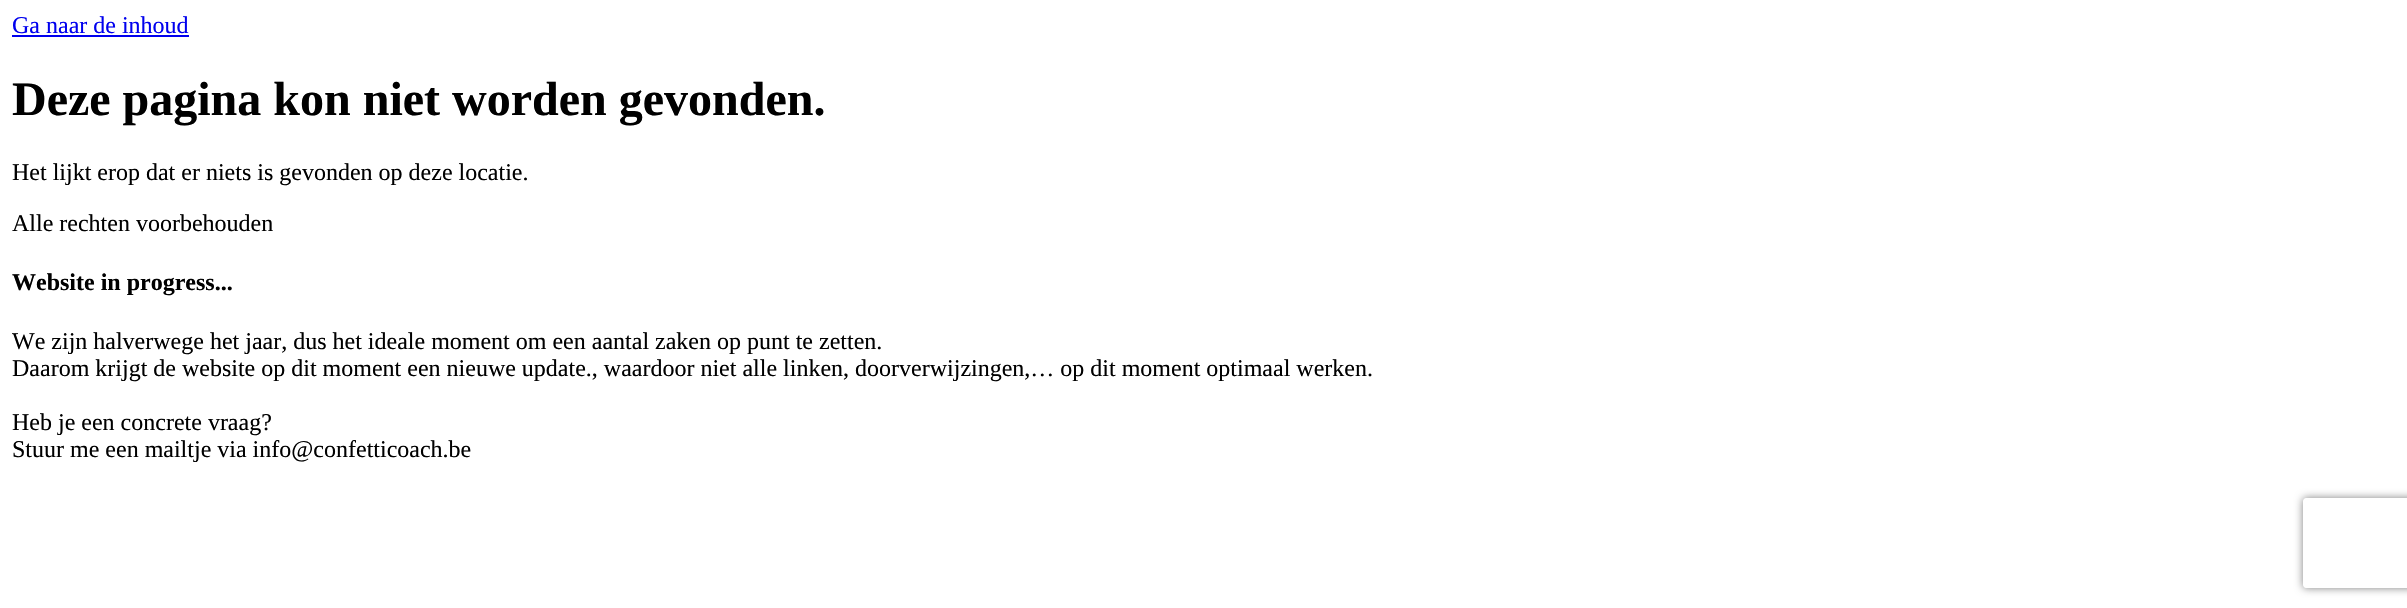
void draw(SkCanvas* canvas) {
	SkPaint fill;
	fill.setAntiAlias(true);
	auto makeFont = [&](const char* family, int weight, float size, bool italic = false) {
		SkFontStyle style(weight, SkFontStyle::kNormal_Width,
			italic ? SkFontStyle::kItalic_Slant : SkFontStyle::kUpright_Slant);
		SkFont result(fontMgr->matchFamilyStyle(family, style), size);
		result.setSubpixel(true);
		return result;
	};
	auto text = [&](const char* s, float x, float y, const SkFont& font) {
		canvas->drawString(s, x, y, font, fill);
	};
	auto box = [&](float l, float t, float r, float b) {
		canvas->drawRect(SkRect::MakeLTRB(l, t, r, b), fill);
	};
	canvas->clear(0xFFFFFFFF);
	fill.setColor(0xFF0000EE);
	box(12, 35, 189, 37);
	canvas->save();
	canvas->clipPath(SkPathBuilder(SkPathFillType::kEvenOdd).moveTo(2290, 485).lineTo(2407, 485).lineTo(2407, 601).lineTo(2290, 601).close().moveTo(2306, 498).lineTo(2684, 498).cubicTo(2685.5f, 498, 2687, 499.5f, 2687, 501).lineTo(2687, 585).cubicTo(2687, 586.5f, 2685.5f, 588, 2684, 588).lineTo(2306, 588).cubicTo(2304.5f, 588, 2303, 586.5f, 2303, 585).lineTo(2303, 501).cubicTo(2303, 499.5f, 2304.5f, 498, 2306, 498).close().detach(), true);
	fill.setColor(0xFF808080);
	fill.setMaskFilter(SkMaskFilter::MakeBlur(kNormal_SkBlurStyle, 4));
	canvas->drawRoundRect(SkRect::MakeLTRB(2303, 498, 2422, 588), 3, 3, fill);
	fill.setMaskFilter(nullptr);
	canvas->restore();
	auto font1 = makeFont("Liberation Serif", 400, 24);
	fill.setColor(0xFF0000EE);
	text("Ga naar de inhoud", 12, 33, font1);
	auto font2 = makeFont("Liberation Serif", 700, 48);
	fill.setColor(0xFF000000);
	text("Deze pagina kon niet worden gevonden.", 12, 115, font2);
	text("Het lijkt erop dat er niets is gevonden op deze locatie.", 12, 180, font1);
	text("Alle rechten voorbehouden", 12, 231, font1);
	auto font3 = makeFont("Liberation Serif", 700, 24);
	text("Website in progress...", 12, 290, font3);
	text("We zijn halverwege het jaar, dus het ideale moment om een aantal zaken op punt te zetten.", 12, 349, font1);
	text("Daarom krijgt de website op dit moment een nieuwe update., waardoor niet alle linken, doorverwijzingen,… op dit moment optimaal werken.", 12, 376, font1);
	text("Heb je een concrete vraag?", 12, 430, font1);
	text("Stuur me een mailtje via info@confetticoach.be", 12, 457, font1);
}
